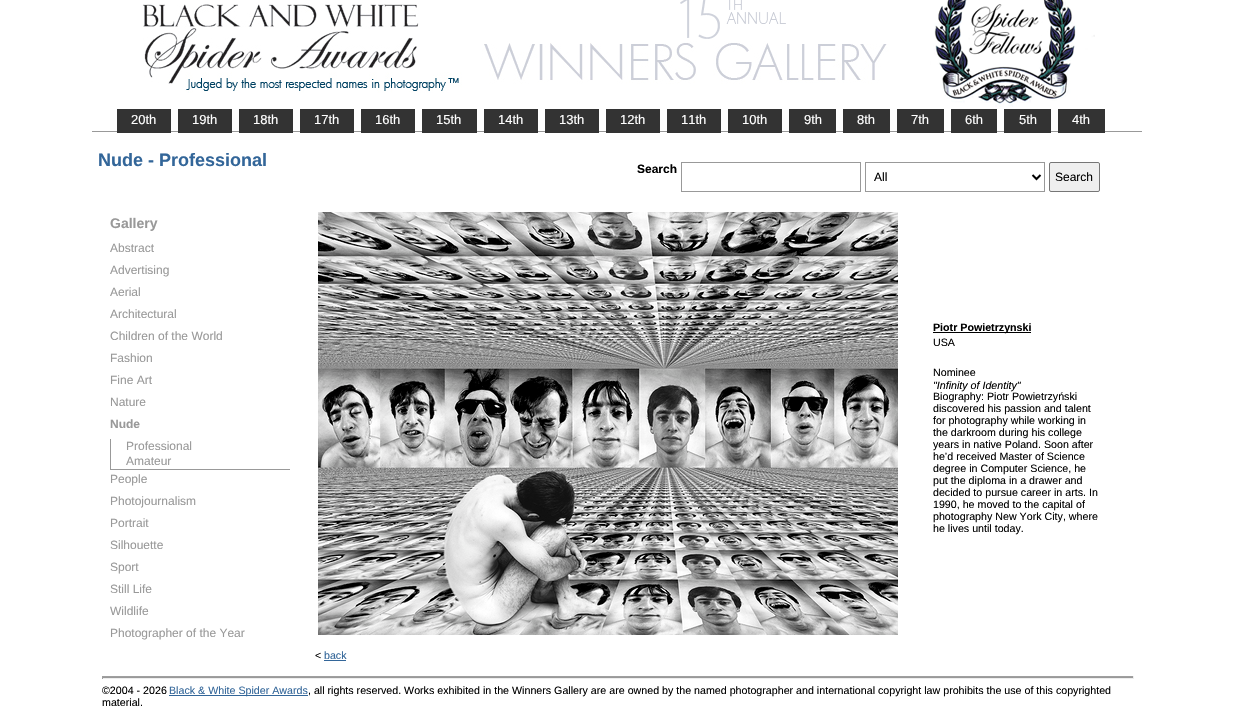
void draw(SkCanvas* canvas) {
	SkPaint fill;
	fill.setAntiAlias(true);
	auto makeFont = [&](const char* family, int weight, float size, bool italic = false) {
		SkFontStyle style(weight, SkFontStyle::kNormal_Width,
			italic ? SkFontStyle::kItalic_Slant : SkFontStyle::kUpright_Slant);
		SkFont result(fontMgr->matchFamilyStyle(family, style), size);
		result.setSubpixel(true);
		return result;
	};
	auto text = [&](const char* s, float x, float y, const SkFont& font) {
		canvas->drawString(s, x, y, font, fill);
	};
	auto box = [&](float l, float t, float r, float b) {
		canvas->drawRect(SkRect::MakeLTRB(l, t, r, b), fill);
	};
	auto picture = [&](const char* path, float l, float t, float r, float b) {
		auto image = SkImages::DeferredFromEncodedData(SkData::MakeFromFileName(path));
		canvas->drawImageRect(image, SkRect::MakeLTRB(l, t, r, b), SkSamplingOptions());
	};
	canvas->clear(0xFFFFFFFF);
	picture("image0.png", 142, 0, 1095, 107);
	fill.setColor(0xFF999999);
	box(92, 131, 1142, 132);
	fill.setColor(0xFF333333);
	box(117, 109, 171, 133);
	box(178, 109, 232, 133);
	box(239, 109, 293, 133);
	box(300, 109, 354, 133);
	box(361, 109, 415, 133);
	box(422, 109, 477, 133);
	box(484, 109, 538, 133);
	box(545, 109, 599, 133);
	box(606, 109, 660, 133);
	box(667, 109, 721, 133);
	box(728, 109, 782, 133);
	box(789, 109, 836, 133);
	box(843, 109, 890, 133);
	box(897, 109, 944, 133);
	box(951, 109, 997, 133);
	box(1004, 109, 1051, 133);
	box(1058, 109, 1105, 133);
	fill.setStyle(SkPaint::kStroke_Style);
	fill.setStrokeWidth(1);
	fill.setColor(0xFF999999);
	canvas->drawRect(SkRect::MakeLTRB(681.5f, 162.5f, 860.5f, 191.5f), fill);
	canvas->drawRect(SkRect::MakeLTRB(865.5f, 162.5f, 1044.5f, 191.5f), fill);
	fill.setStrokeWidth(2);
	fill.setColor(0xFF000000);
	canvas->drawPath(SkPathBuilder().moveTo(1032.5f, 175).lineTo(1036.5f, 179).lineTo(1040.5f, 175).detach(), fill);
	fill.setStyle(SkPaint::kFill_Style);
	fill.setColor(0xFFEFEFEF);
	canvas->drawRoundRect(SkRect::MakeLTRB(1049.5f, 162.5f, 1099.5f, 191.5f), 1.5f, 1.5f, fill);
	fill.setStyle(SkPaint::kStroke_Style);
	fill.setStrokeWidth(1);
	fill.setColor(0xFF767676);
	canvas->drawRoundRect(SkRect::MakeLTRB(1049.5f, 162.5f, 1099.5f, 191.5f), 1.5f, 1.5f, fill);
	fill.setStyle(SkPaint::kFill_Style);
	fill.setColor(0xFF999999);
	box(110, 469, 290, 470);
	box(110, 439, 111, 470);
	picture("image1.png", 318, 212, 898, 635);
	fill.setColor(0xFF000000);
	box(933, 332, 1031, 333);
	fill.setColor(0xFF336699);
	box(324, 660, 346, 661);
	fill.setColor(0xFF999999);
	box(102, 677, 1134, 678);
	fill.setColor(0xFF9F9F9F);
	box(102, 676, 1134, 677);
	fill.setColor(0xFFEEEEEE);
	box(1133, 676, 1134, 679);
	box(102, 678, 1134, 679);
	fill.setColor(0xFF9F9F9F);
	box(102, 676, 103, 679);
	fill.setColor(0xFF336699);
	box(169, 695, 308, 696);
	auto font1 = makeFont("Liberation Sans", 400, 13);
	fill.setColor(0xFFFFFFFF);
	text("20th", 131, 124, font1);
	text("19th", 192, 124, font1);
	text("18th", 253, 124, font1);
	text("17th", 314, 124, font1);
	text("16th", 375, 124, font1);
	text("15th", 436, 124, font1);
	text("14th", 498, 124, font1);
	text("13th", 559, 124, font1);
	text("12th", 620, 124, font1);
	text("11th", 681, 124, font1);
	text("10th", 742, 124, font1);
	text("9th", 804, 124, font1);
	text("8th", 857, 124, font1);
	text("7th", 911, 124, font1);
	text("6th", 965, 124, font1);
	text("5th", 1019, 124, font1);
	text("4th", 1072, 124, font1);
	auto font2 = makeFont("Liberation Sans", 700, 18);
	fill.setColor(0xFF336699);
	text("Nude - Professional", 98, 166, font2);
	auto font3 = makeFont("Liberation Sans", 700, 12);
	fill.setColor(0xFF000000);
	text("Search", 637, 173, font3);
	auto font4 = makeFont("Liberation Sans", 400, 12);
	text("All", 874, 181, font4);
	text("Search", 1055, 181, font4);
	auto font5 = makeFont("Liberation Sans", 700, 14);
	fill.setColor(0xFF999999);
	text("Gallery", 110, 228, font5);
	text("Abstract", 110, 252, font4);
	text("Advertising", 110, 274, font4);
	text("Aerial", 110, 296, font4);
	text("Architectural", 110, 318, font4);
	text("Children of the World", 110, 340, font4);
	text("Fashion", 110, 362, font4);
	text("Fine Art", 110, 384, font4);
	text("Nature", 110, 406, font4);
	text("Nude", 110, 428, font3);
	text("Professional", 126, 450, font4);
	text("Amateur", 126, 465, font4);
	text("People", 110, 483, font4);
	text("Photojournalism", 110, 505, font4);
	text("Portrait", 110, 527, font4);
	text("Silhouette", 110, 549, font4);
	text("Sport", 110, 571, font4);
	text("Still Life", 110, 593, font4);
	text("Wildlife", 110, 615, font4);
	text("Photographer of the Year", 110, 637, font4);
	auto font6 = makeFont("Liberation Sans", 700, 10.67f);
	fill.setColor(0xFF000000);
	text("Piotr Powietrzynski", 933, 331, font6);
	auto font7 = makeFont("Liberation Sans", 400, 10.67f);
	text("USA", 933, 346, font7);
	text("Nominee", 933, 376, font7);
	auto font8 = makeFont("Liberation Sans", 400, 10.67f, true);
	text("\"Infinity of Identity\"", 933, 389, font8);
	text("Biography: Piotr Powietrzyński", 933, 400, font7);
	text("discovered his passion and talent", 933, 412, font7);
	text("for photography while working in", 933, 424, font7);
	text("the darkroom during his college", 933, 436, font7);
	text("years in native Poland. Soon after", 933, 448, font7);
	text("he’d received Master of Science", 933, 460, font7);
	text("degree in Computer Science, he", 933, 472, font7);
	text("put the diploma in a drawer and", 933, 484, font7);
	text("decided to pursue career in arts. In", 933, 496, font7);
	text("1990, he moved to the capital of", 933, 508, font7);
	text("photography New York City, where", 933, 520, font7);
	text("he lives until today.", 933, 532, font7);
	text("<", 315, 659, font7);
	fill.setColor(0xFF336699);
	text("back", 324, 659, font7);
	fill.setColor(0xFF000000);
	text("©2004 - 2026", 102, 694, font7);
	fill.setColor(0xFF336699);
	text("Black & White Spider Awards", 169, 694, font7);
	fill.setColor(0xFF000000);
	text(", all rights reserved. Works exhibited in the Winners Gallery are are owned by the named photographer and international copyright law prohibits the use of this copyrighted", 308, 694, font7);
	text("material.", 102, 706, font7);
}
